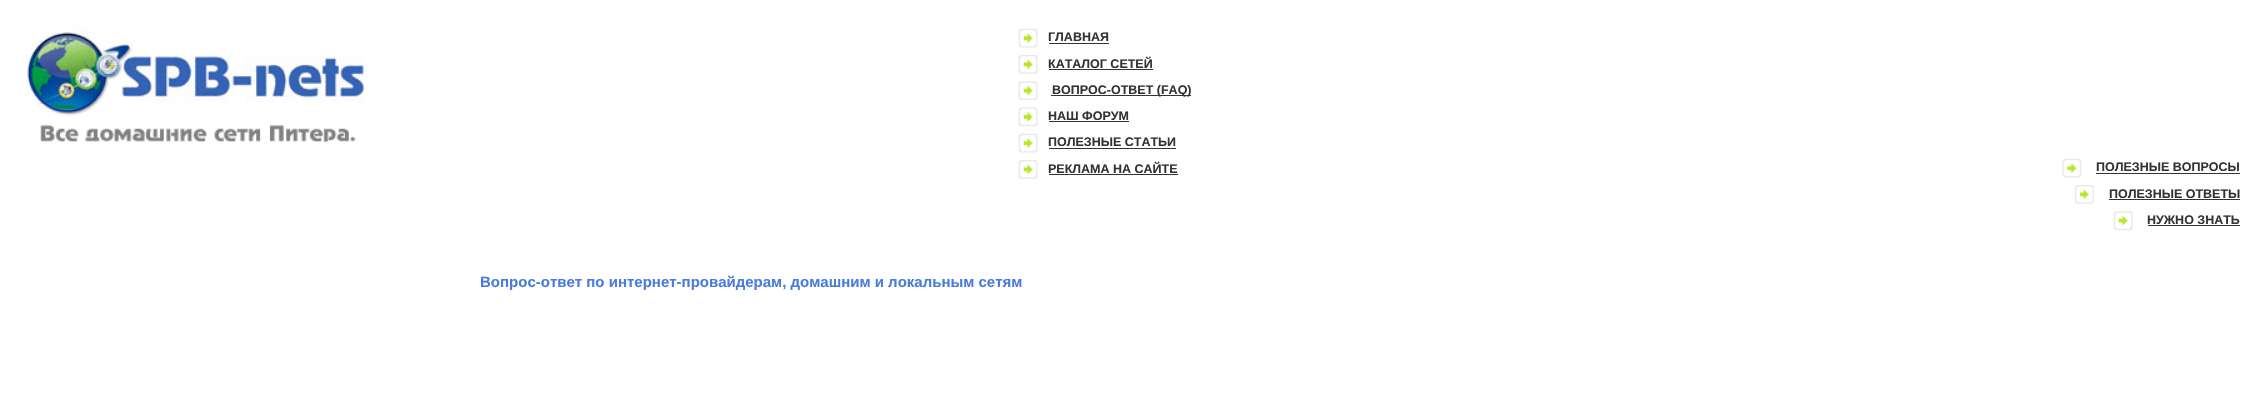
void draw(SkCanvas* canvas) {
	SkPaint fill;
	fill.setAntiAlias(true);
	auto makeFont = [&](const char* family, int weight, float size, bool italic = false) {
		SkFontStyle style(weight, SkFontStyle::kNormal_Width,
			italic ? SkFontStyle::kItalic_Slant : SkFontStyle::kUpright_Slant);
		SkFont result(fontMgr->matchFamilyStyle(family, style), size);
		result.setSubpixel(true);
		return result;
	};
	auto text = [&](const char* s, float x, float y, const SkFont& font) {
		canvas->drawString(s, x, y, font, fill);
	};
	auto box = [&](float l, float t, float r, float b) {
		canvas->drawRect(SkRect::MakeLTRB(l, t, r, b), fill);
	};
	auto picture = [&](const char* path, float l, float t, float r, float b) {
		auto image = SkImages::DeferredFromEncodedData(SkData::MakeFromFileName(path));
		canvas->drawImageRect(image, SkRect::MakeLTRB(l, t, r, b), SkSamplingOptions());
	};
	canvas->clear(0xFFFFFFFF);
	picture("image0.png", 25, 25, 365, 143);
	picture("image1.png", 1018, 28, 1038, 48);
	fill.setColor(0xFF333333);
	box(1049, 43, 1109, 44);
	picture("image2.png", 1018, 55, 1038, 74);
	box(1049, 69, 1153, 70);
	picture("image3.png", 1018, 81, 1038, 100);
	box(1051, 95, 1191, 96);
	picture("image4.png", 1018, 107, 1038, 127);
	box(1049, 121, 1129, 122);
	picture("image1.png", 1018, 133, 1038, 153);
	box(1049, 148, 1176, 149);
	picture("image2.png", 1018, 160, 1038, 179);
	box(1049, 174, 1178, 175);
	picture("image5.png", 2062, 158, 2082, 178);
	box(2096, 173, 2240, 174);
	picture("image6.png", 2075, 185, 2094, 204);
	box(2109, 199, 2240, 200);
	picture("image7.png", 2113, 211, 2133, 230);
	box(2148, 225, 2240, 226);
	auto font1 = makeFont("Liberation Sans", 700, 12.5f);
	text("ГЛАВНАЯ", 1048, 41, font1);
	text("КАТАЛОГ СЕТЕЙ", 1048, 68, font1);
	text("ВОПРОС-ОТВЕТ (FAQ)", 1052, 94, font1);
	text("НАШ ФОРУМ", 1048, 120, font1);
	text("ПОЛЕЗНЫЕ СТАТЬИ", 1048, 146, font1);
	text("РЕКЛАМА НА САЙТЕ", 1048, 173, font1);
	text("ПОЛЕЗНЫЕ ВОПРОСЫ", 2096, 171, font1);
	text("ПОЛЕЗНЫЕ ОТВЕТЫ", 2109, 198, font1);
	text("НУЖНО ЗНАТЬ", 2147, 224, font1);
	auto font2 = makeFont("Liberation Sans", 700, 15);
	fill.setColor(0xFF4C7CDB);
	text("Вопрос-ответ по интернет-провайдерам, домашним и локальным сетям", 480, 287, font2);
}
